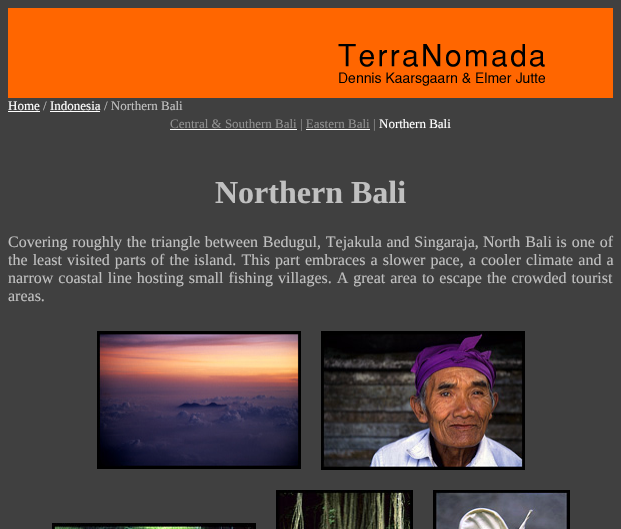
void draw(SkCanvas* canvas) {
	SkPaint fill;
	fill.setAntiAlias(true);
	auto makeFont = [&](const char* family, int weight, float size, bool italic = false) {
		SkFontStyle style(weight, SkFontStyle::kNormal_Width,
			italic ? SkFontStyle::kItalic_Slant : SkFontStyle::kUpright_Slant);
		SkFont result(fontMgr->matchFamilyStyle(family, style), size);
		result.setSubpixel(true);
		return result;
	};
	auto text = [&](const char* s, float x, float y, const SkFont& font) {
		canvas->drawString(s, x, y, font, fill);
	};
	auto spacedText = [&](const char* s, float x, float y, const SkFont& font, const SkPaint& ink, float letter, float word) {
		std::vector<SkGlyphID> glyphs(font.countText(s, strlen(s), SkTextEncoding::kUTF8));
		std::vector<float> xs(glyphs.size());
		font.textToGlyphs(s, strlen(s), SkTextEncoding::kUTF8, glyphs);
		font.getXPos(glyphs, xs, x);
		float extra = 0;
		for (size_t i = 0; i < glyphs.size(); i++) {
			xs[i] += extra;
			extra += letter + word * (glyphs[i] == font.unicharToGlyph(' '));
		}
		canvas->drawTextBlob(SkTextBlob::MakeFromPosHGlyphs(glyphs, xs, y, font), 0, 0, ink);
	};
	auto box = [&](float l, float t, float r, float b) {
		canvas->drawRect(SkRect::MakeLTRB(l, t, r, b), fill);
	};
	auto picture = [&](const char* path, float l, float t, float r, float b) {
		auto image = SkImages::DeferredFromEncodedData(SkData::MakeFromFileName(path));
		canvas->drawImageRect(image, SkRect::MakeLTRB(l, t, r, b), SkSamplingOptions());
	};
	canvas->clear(0xFF404040);
	fill.setColor(0xFFFF6600);
	box(8, 8, 613, 98);
	picture("image0.png", 338, 44, 545, 86);
	fill.setColor(0xFFFFFFFF);
	box(8, 111, 40, 112);
	box(50, 111, 100, 112);
	box(170, 129, 297, 130);
	picture("image1.png", 97, 331, 301, 469);
	picture("image2.png", 321, 331, 525, 470);
	picture("image3.png", 52, 523, 256, 529);
	picture("image4.png", 276, 490, 413, 529);
	picture("image5.png", 433, 490, 570, 529);
	auto font1 = makeFont("Liberation Serif", 400, 13);
	text("Home", 8, 110, font1);
	fill.setColor(0xFFC0C0C0);
	text("/", 43, 110, font1);
	fill.setColor(0xFFFFFFFF);
	text("Indonesia", 50, 110, font1);
	fill.setColor(0xFFC0C0C0);
	text("/ Northern Bali", 104, 110, font1);
	fill.setColor(0xFF909090);
	text("Central & Southern Bali | Eastern Bali |", 170, 128, font1);
	fill.setColor(0xFFFFFFFF);
	box(306, 129, 370, 130);
	text("Northern Bali", 379, 128, font1);
	auto font2 = makeFont("Liberation Serif", 700, 32);
	fill.setColor(0xFFC0C0C0);
	text("Northern Bali", 215, 203, font2);
	auto font3 = makeFont("Liberation Serif", 400, 16);
	spacedText("Covering roughly the triangle between Bedugul, Tejakula and Singaraja,", 8, 247, font3, fill, 0, 0.75f);
	spacedText("North Bali", 483, 247, font3, fill, 0, 1);
	spacedText("is one of", 556, 247, font3, fill, 0, 1);
	spacedText("the least visited parts of the island. This part embraces a slower pace, a cooler climate and a", 8, 265, font3, fill, 0, 1.1f);
	spacedText("narrow coastal line hosting small fishing villages. A great area to escape the crowded tourist", 8, 283, font3, fill, 0, 1);
	text("areas.", 8, 301, font3);
}
